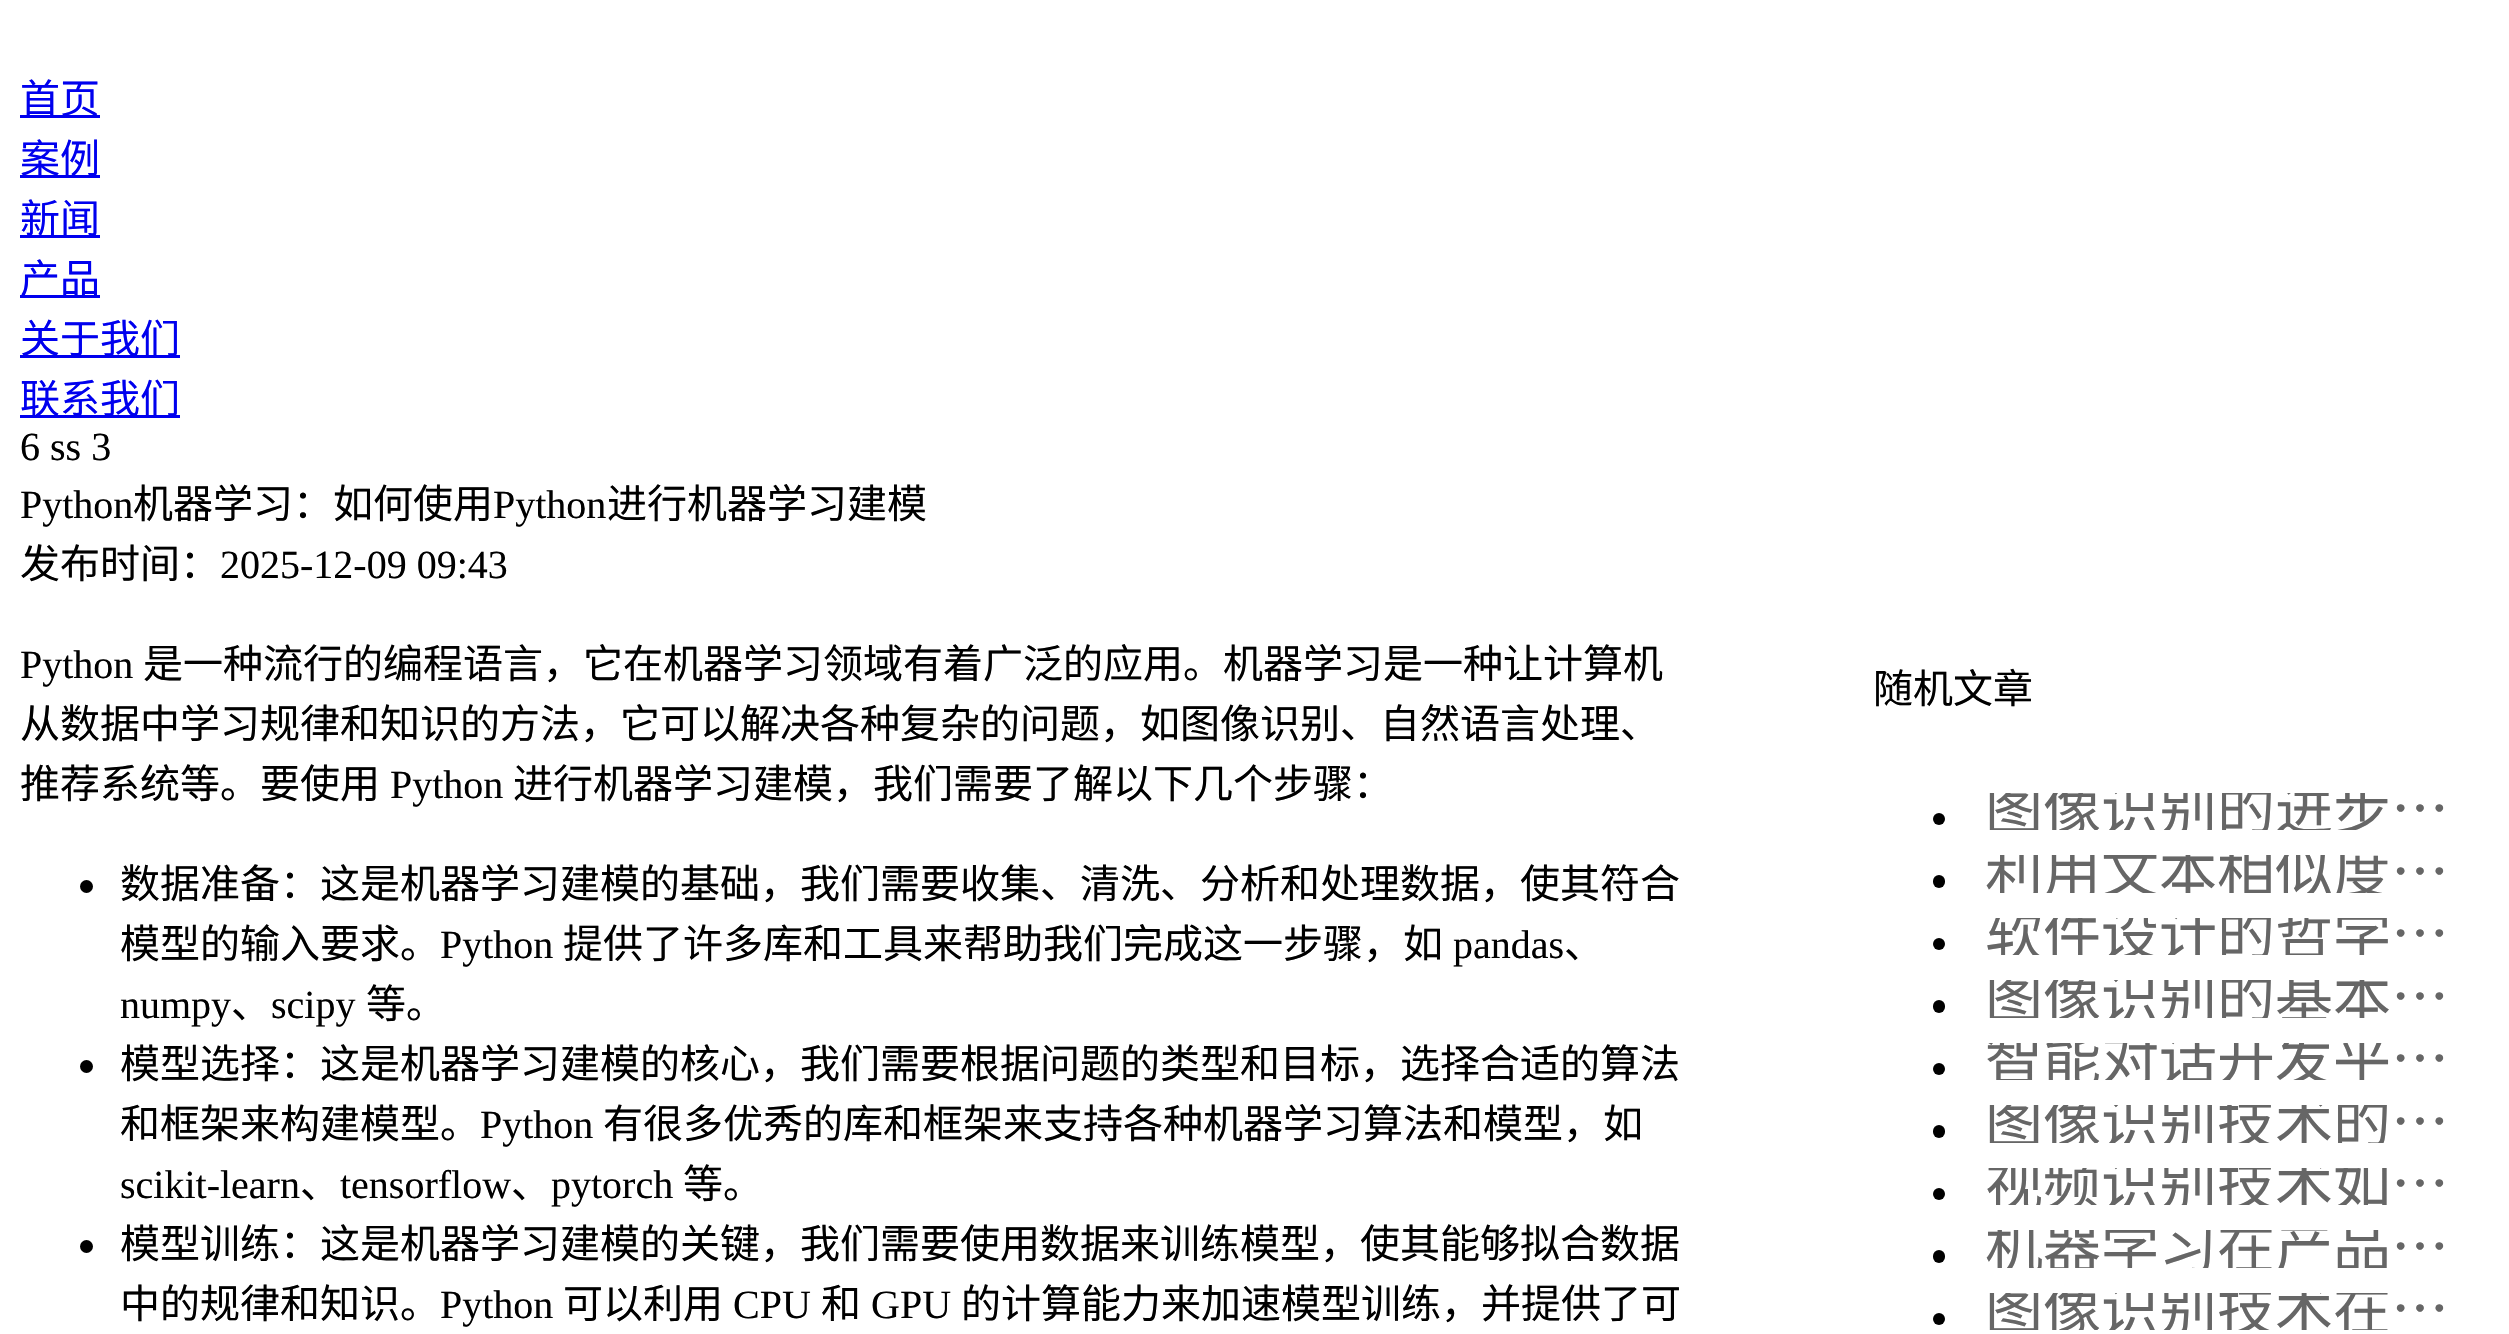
void draw(SkCanvas* canvas) {
	SkPaint fill;
	fill.setAntiAlias(true);
	auto makeFont = [&](const char* family, int weight, float size, bool italic = false) {
		SkFontStyle style(weight, SkFontStyle::kNormal_Width,
			italic ? SkFontStyle::kItalic_Slant : SkFontStyle::kUpright_Slant);
		SkFont result(fontMgr->matchFamilyStyle(family, style), size);
		result.setSubpixel(true);
		return result;
	};
	auto text = [&](const char* s, float x, float y, const SkFont& font) {
		canvas->drawString(s, x, y, font, fill);
	};
	auto spacedText = [&](const char* s, float x, float y, const SkFont& font, const SkPaint& ink, float letter, float word) {
		std::vector<SkGlyphID> glyphs(font.countText(s, strlen(s), SkTextEncoding::kUTF8));
		std::vector<float> xs(glyphs.size());
		font.textToGlyphs(s, strlen(s), SkTextEncoding::kUTF8, glyphs);
		font.getXPos(glyphs, xs, x);
		float extra = 0;
		for (size_t i = 0; i < glyphs.size(); i++) {
			xs[i] += extra;
			extra += letter + word * (glyphs[i] == font.unicharToGlyph(' '));
		}
		canvas->drawTextBlob(SkTextBlob::MakeFromPosHGlyphs(glyphs, xs, y, font), 0, 0, ink);
	};
	auto box = [&](float l, float t, float r, float b) {
		canvas->drawRect(SkRect::MakeLTRB(l, t, r, b), fill);
	};
	auto roundBox = [&](float l, float t, float r, float b, float radius) {
		canvas->drawRoundRect(SkRect::MakeLTRB(l, t, r, b), radius, radius, fill);
	};
	canvas->clear(0xFFFFFFFF);
	fill.setColor(0xFF0000EE);
	box(20, 115, 100, 118);
	box(20, 175, 100, 178);
	box(20, 235, 100, 238);
	box(20, 295, 100, 298);
	box(20, 355, 180, 358);
	box(20, 415, 180, 418);
	fill.setColor(0xFF000000);
	canvas->drawCircle(86.5f, 886.5f, 6.5f, fill);
	canvas->drawCircle(86.5f, 1066.5f, 6.5f, fill);
	canvas->drawCircle(86.5f, 1246.5f, 6.5f, fill);
	canvas->drawCircle(1939, 819, 6, fill);
	roundBox(1933, 875, 1945, 888, 6);
	canvas->drawCircle(1939, 944, 6, fill);
	roundBox(1933, 1000, 1945, 1013, 6);
	canvas->drawCircle(1939, 1069, 6, fill);
	roundBox(1933, 1125, 1945, 1138, 6);
	canvas->drawCircle(1939, 1194, 6, fill);
	roundBox(1933, 1250, 1945, 1263, 6);
	canvas->drawCircle(1939, 1319, 6, fill);
	auto font1 = makeFont("Noto Sans CJK SC", 400, 40);
	fill.setColor(0xFF0000EE);
	text("首页", 20, 113, font1);
	text("案例", 20, 173, font1);
	text("新闻", 20, 233, font1);
	text("产品", 20, 293, font1);
	text("关于我们", 20, 353, font1);
	text("联系我们", 20, 413, font1);
	auto font2 = makeFont("Liberation Serif", 400, 40);
	fill.setColor(0xFF000000);
	text("6 ss 3", 20, 460, font2);
	text("Python", 20, 518, font2);
	text("机器学习：如何使用", 133, 518, font1);
	text("Python", 493, 518, font2);
	text("进行机器学习建模", 607, 518, font1);
	text("发布时间：", 20, 578, font1);
	text("2025-12-09 09:43", 220, 578, font2);
	text("Python", 20, 678, font2);
	text("是一种流行的编程语言，它在机器学习领域有着广泛的应用。机器学习是一种让计算机", 143, 678, font1);
	text("从数据中学习规律和知识的方法，它可以解决各种复杂的问题，如图像识别、自然语言处理、", 20, 738, font1);
	text("推荐系统等。要使用", 20, 798, font1);
	text("Python", 390, 798, font2);
	text("进行机器学习建模，我们需要了解以下几个步骤：", 513, 798, font1);
	text("数据准备：这是机器学习建模的基础，我们需要收集、清洗、分析和处理数据，使其符合", 120, 898, font1);
	text("模型的输入要求。", 120, 958, font1);
	text("Python", 440, 958, font2);
	text("提供了许多库和工具来帮助我们完成这一步骤，如", 563, 958, font1);
	text("pandas", 1453, 958, font2);
	text("、", 1564, 958, font1);
	text("numpy", 120, 1018, font2);
	text("、", 231, 1018, font1);
	text("scipy", 271, 1018, font2);
	text("等。", 366, 1018, font1);
	text("模型选择：这是机器学习建模的核心，我们需要根据问题的类型和目标，选择合适的算法", 120, 1078, font1);
	text("和框架来构建模型。", 120, 1138, font1);
	text("Python", 480, 1138, font2);
	text("有很多优秀的库和框架来支持各种机器学习算法和模型，如", 603, 1138, font1);
	text("scikit-learn", 120, 1198, font2);
	text("、", 300, 1198, font1);
	text("tensorflow", 340, 1198, font2);
	text("、", 511, 1198, font1);
	text("pytorch", 551, 1198, font2);
	text("等。", 683, 1198, font1);
	text("模型训练：这是机器学习建模的关键，我们需要使用数据来训练模型，使其能够拟合数据", 120, 1258, font1);
	text("中的规律和知识。", 120, 1318, font1);
	text("Python", 440, 1318, font2);
	text("可以利用", 563, 1318, font1);
	text("CPU", 733, 1318, font2);
	text("和", 821, 1318, font1);
	text("GPU", 871, 1318, font2);
	text("的计算能力来加速模型训练，并提供了可", 961, 1318, font1);
	text("随机文章", 1873, 703, font1);
	canvas->save();
	canvas->clipRect(SkRect::MakeLTRB(1985, 793, 2478, 830));
	auto font3 = makeFont("Noto Sans CJK SC", 400, 58);
	fill.setColor(0xFF666666);
	text("图像识别的进步…", 1985, 830, font3);
	canvas->restore();
	canvas->save();
	canvas->clipRect(SkRect::MakeLTRB(1985, 855, 2478, 893));
	text("利用文本相似度…", 1985, 893, font3);
	canvas->restore();
	canvas->save();
	canvas->clipRect(SkRect::MakeLTRB(1985, 918, 2478, 955));
	spacedText("软件设计的哲学…", 1985, 955, font3, fill, 0, 2);
	canvas->restore();
	canvas->save();
	canvas->clipRect(SkRect::MakeLTRB(1985, 980, 2478, 1018));
	text("图像识别的基本…", 1985, 1018, font3);
	canvas->restore();
	canvas->save();
	canvas->clipRect(SkRect::MakeLTRB(1985, 1043, 2478, 1080));
	text("智能对话开发平…", 1985, 1080, font3);
	canvas->restore();
	canvas->save();
	canvas->clipRect(SkRect::MakeLTRB(1985, 1105, 2478, 1143));
	text("图像识别技术的…", 1985, 1143, font3);
	canvas->restore();
	canvas->save();
	canvas->clipRect(SkRect::MakeLTRB(1985, 1168, 2478, 1205));
	text("视频识别技术如…", 1985, 1205, font3);
	canvas->restore();
	canvas->save();
	canvas->clipRect(SkRect::MakeLTRB(1985, 1230, 2478, 1268));
	text("机器学习在产品…", 1985, 1268, font3);
	canvas->restore();
	canvas->save();
	canvas->clipRect(SkRect::MakeLTRB(1985, 1293, 2478, 1330));
	text("图像识别技术在…", 1985, 1330, font3);
	canvas->restore();
}
